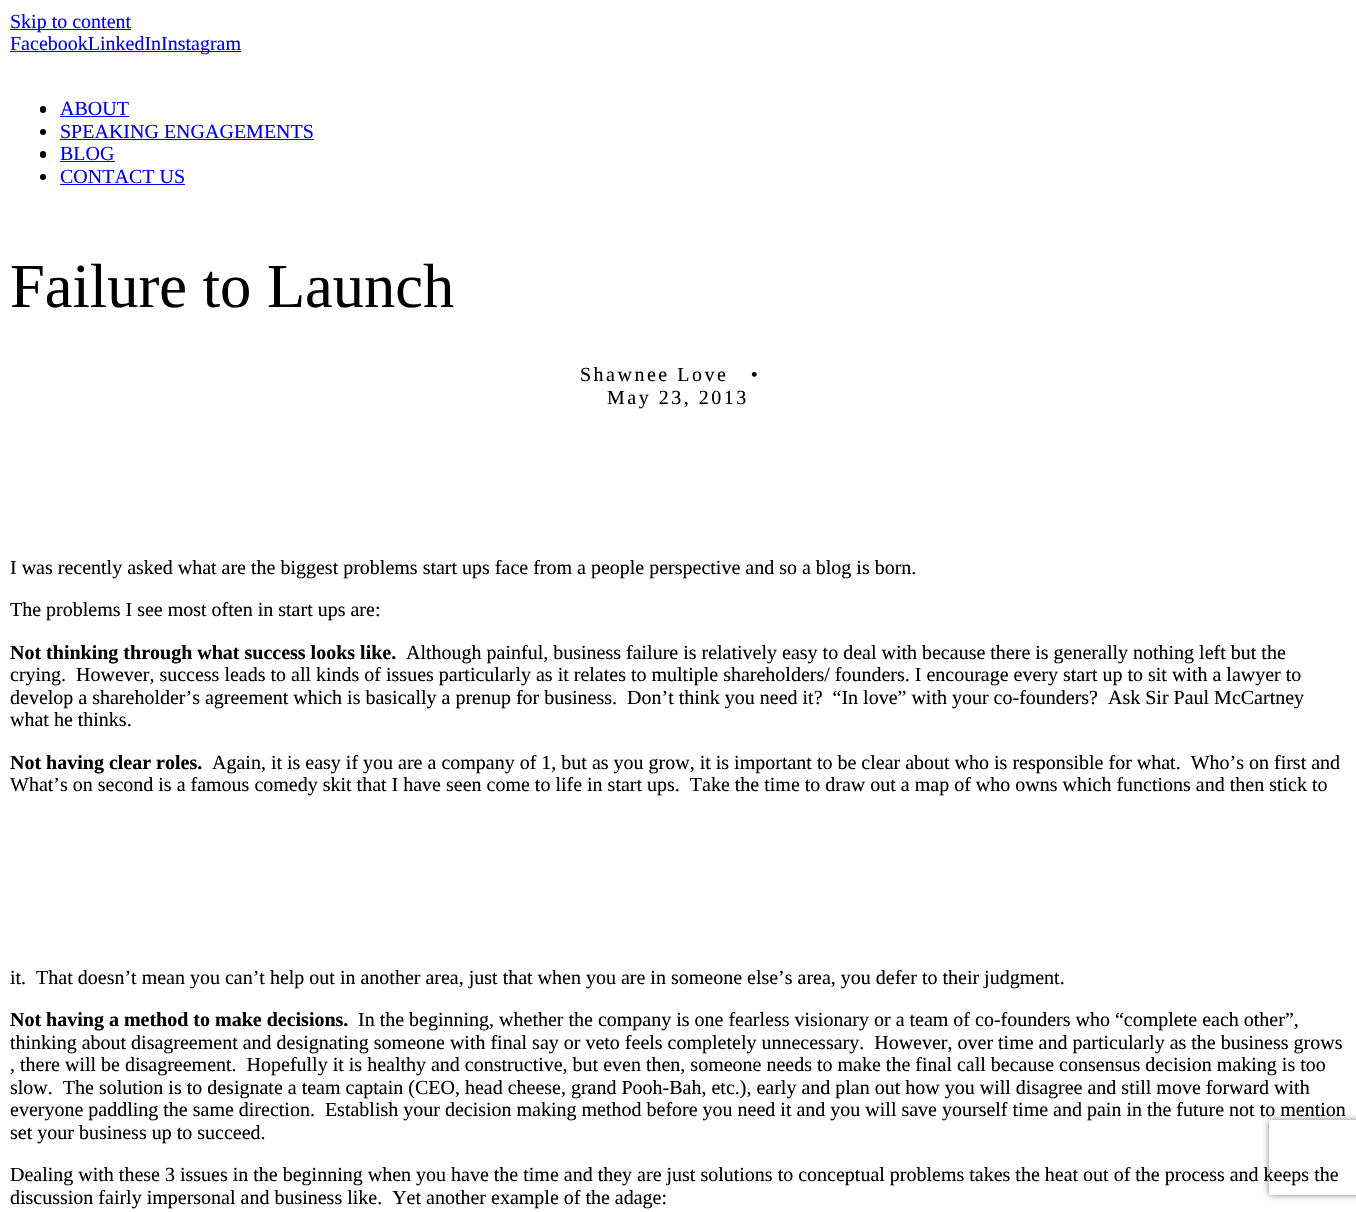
void draw(SkCanvas* canvas) {
	SkPaint fill;
	fill.setAntiAlias(true);
	auto makeFont = [&](const char* family, int weight, float size, bool italic = false) {
		SkFontStyle style(weight, SkFontStyle::kNormal_Width,
			italic ? SkFontStyle::kItalic_Slant : SkFontStyle::kUpright_Slant);
		SkFont result(fontMgr->matchFamilyStyle(family, style), size);
		result.setSubpixel(true);
		return result;
	};
	auto text = [&](const char* s, float x, float y, const SkFont& font) {
		canvas->drawString(s, x, y, font, fill);
	};
	auto spacedText = [&](const char* s, float x, float y, const SkFont& font, const SkPaint& ink, float letter, float word) {
		std::vector<SkGlyphID> glyphs(font.countText(s, strlen(s), SkTextEncoding::kUTF8));
		std::vector<float> xs(glyphs.size());
		font.textToGlyphs(s, strlen(s), SkTextEncoding::kUTF8, glyphs);
		font.getXPos(glyphs, xs, x);
		float extra = 0;
		for (size_t i = 0; i < glyphs.size(); i++) {
			xs[i] += extra;
			extra += letter + word * (glyphs[i] == font.unicharToGlyph(' '));
		}
		canvas->drawTextBlob(SkTextBlob::MakeFromPosHGlyphs(glyphs, xs, y, font), 0, 0, ink);
	};
	auto box = [&](float l, float t, float r, float b) {
		canvas->drawRect(SkRect::MakeLTRB(l, t, r, b), fill);
	};
	auto roundBox = [&](float l, float t, float r, float b, float radius) {
		canvas->drawRoundRect(SkRect::MakeLTRB(l, t, r, b), radius, radius, fill);
	};
	canvas->clear(0xFFFFFFFF);
	fill.setColor(0xFF0000EE);
	box(10, 29, 131, 30);
	box(10, 51, 241, 52);
	fill.setColor(0xFF000000);
	roundBox(40, 106, 46, 113, 3);
	fill.setColor(0xFF0000EE);
	box(60, 116, 129, 117);
	fill.setColor(0xFF000000);
	canvas->drawCircle(43, 132, 3, fill);
	fill.setColor(0xFF0000EE);
	box(60, 139, 314, 140);
	fill.setColor(0xFF000000);
	roundBox(40, 151, 46, 158, 3);
	fill.setColor(0xFF0000EE);
	box(60, 161, 115, 162);
	fill.setColor(0xFF000000);
	canvas->drawCircle(43, 177, 3, fill);
	fill.setColor(0xFF0000EE);
	box(60, 184, 185, 185);
	canvas->save();
	canvas->clipPath(SkPathBuilder(SkPathFillType::kEvenOdd).moveTo(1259, 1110).lineTo(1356, 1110).lineTo(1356, 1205).lineTo(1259, 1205).close().moveTo(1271.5f, 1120).lineTo(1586.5f, 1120).cubicTo(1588, 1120, 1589, 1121, 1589, 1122.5f).lineTo(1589, 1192.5f).cubicTo(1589, 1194, 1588, 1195, 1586.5f, 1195).lineTo(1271.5f, 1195).cubicTo(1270, 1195, 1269, 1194, 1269, 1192.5f).lineTo(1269, 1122.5f).cubicTo(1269, 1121, 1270, 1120, 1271.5f, 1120).close().detach(), true);
	fill.setColor(0xFF808080);
	fill.setMaskFilter(SkMaskFilter::MakeBlur(kNormal_SkBlurStyle, 3));
	canvas->drawRoundRect(SkRect::MakeLTRB(1269, 1120, 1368, 1195), 2.5f, 2.5f, fill);
	fill.setMaskFilter(nullptr);
	canvas->restore();
	auto font1 = makeFont("Liberation Serif", 400, 20);
	fill.setColor(0xFF0000EE);
	text("Skip to content", 10, 28, font1);
	text("FacebookLinkedInInstagram", 10, 50, font1);
	text("ABOUT", 60, 115, font1);
	text("SPEAKING ENGAGEMENTS", 60, 138, font1);
	text("BLOG", 60, 160, font1);
	text("CONTACT US", 60, 183, font1);
	auto font2 = makeFont("Liberation Serif", 400, 62.5f);
	fill.setColor(0xFF000000);
	text("Failure to Launch", 10, 307, font2);
	spacedText("Shawnee Love   •", 580, 381, font1, fill, 2.5f, 0);
	spacedText("May 23, 2013", 607, 404, font1, fill, 2.5f, 0);
	text("I was recently asked what are the biggest problems start ups face from a people perspective and so a blog is born.", 10, 574, font1);
	text("The problems I see most often in start ups are:", 10, 616, font1);
	auto font3 = makeFont("Liberation Serif", 700, 20);
	text("Not thinking through what success looks like.", 10, 659, font3);
	text("Although painful, business failure is relatively easy to deal with because there is generally nothing left but the", 406, 659, font1);
	text("crying.  However, success leads to all kinds of issues particularly as it relates to multiple shareholders/ founders. I encourage every start up to sit with a lawyer to", 10, 681, font1);
	text("develop a shareholder’s agreement which is basically a prenup for business.  Don’t think you need it?  “In love” with your co-founders?  Ask Sir Paul McCartney", 10, 704, font1);
	text("what he thinks.", 10, 726, font1);
	text("Not having clear roles.", 10, 769, font3);
	text("Again, it is easy if you are a company of 1, but as you grow, it is important to be clear about who is responsible for what.  Who’s on first and", 212, 769, font1);
	text("What’s on second is a famous comedy skit that I have seen come to life in start ups.  Take the time to draw out a map of who owns which functions and then stick to", 10, 791, font1);
	text("it.  That doesn’t mean you can’t help out in another area, just that when you are in someone else’s area, you defer to their judgment.", 10, 984, font1);
	text("Not having a method to make decisions.", 10, 1026, font3);
	text("In the beginning, whether the company is one fearless visionary or a team of co-founders who “complete each other”,", 358, 1026, font1);
	text("thinking about disagreement and designating someone with final say or veto feels completely unnecessary.  However, over time and particularly as the business grows", 10, 1049, font1);
	text(", there will be disagreement.  Hopefully it is healthy and constructive, but even then, someone needs to make the final call because consensus decision making is too", 10, 1071, font1);
	text("slow.  The solution is to designate a team captain (CEO, head cheese, grand Pooh-Bah, etc.), early and plan out how you will disagree and still move forward with", 10, 1094, font1);
	text("everyone paddling the same direction.  Establish your decision making method before you need it and you will save yourself time and pain in the future not to mention", 10, 1116, font1);
	text("set your business up to succeed.", 10, 1139, font1);
	text("Dealing with these 3 issues in the beginning when you have the time and they are just solutions to conceptual problems takes the heat out of the process and keeps the", 10, 1181, font1);
	text("discussion fairly impersonal and business like.  Yet another example of the adage:", 10, 1204, font1);
}
